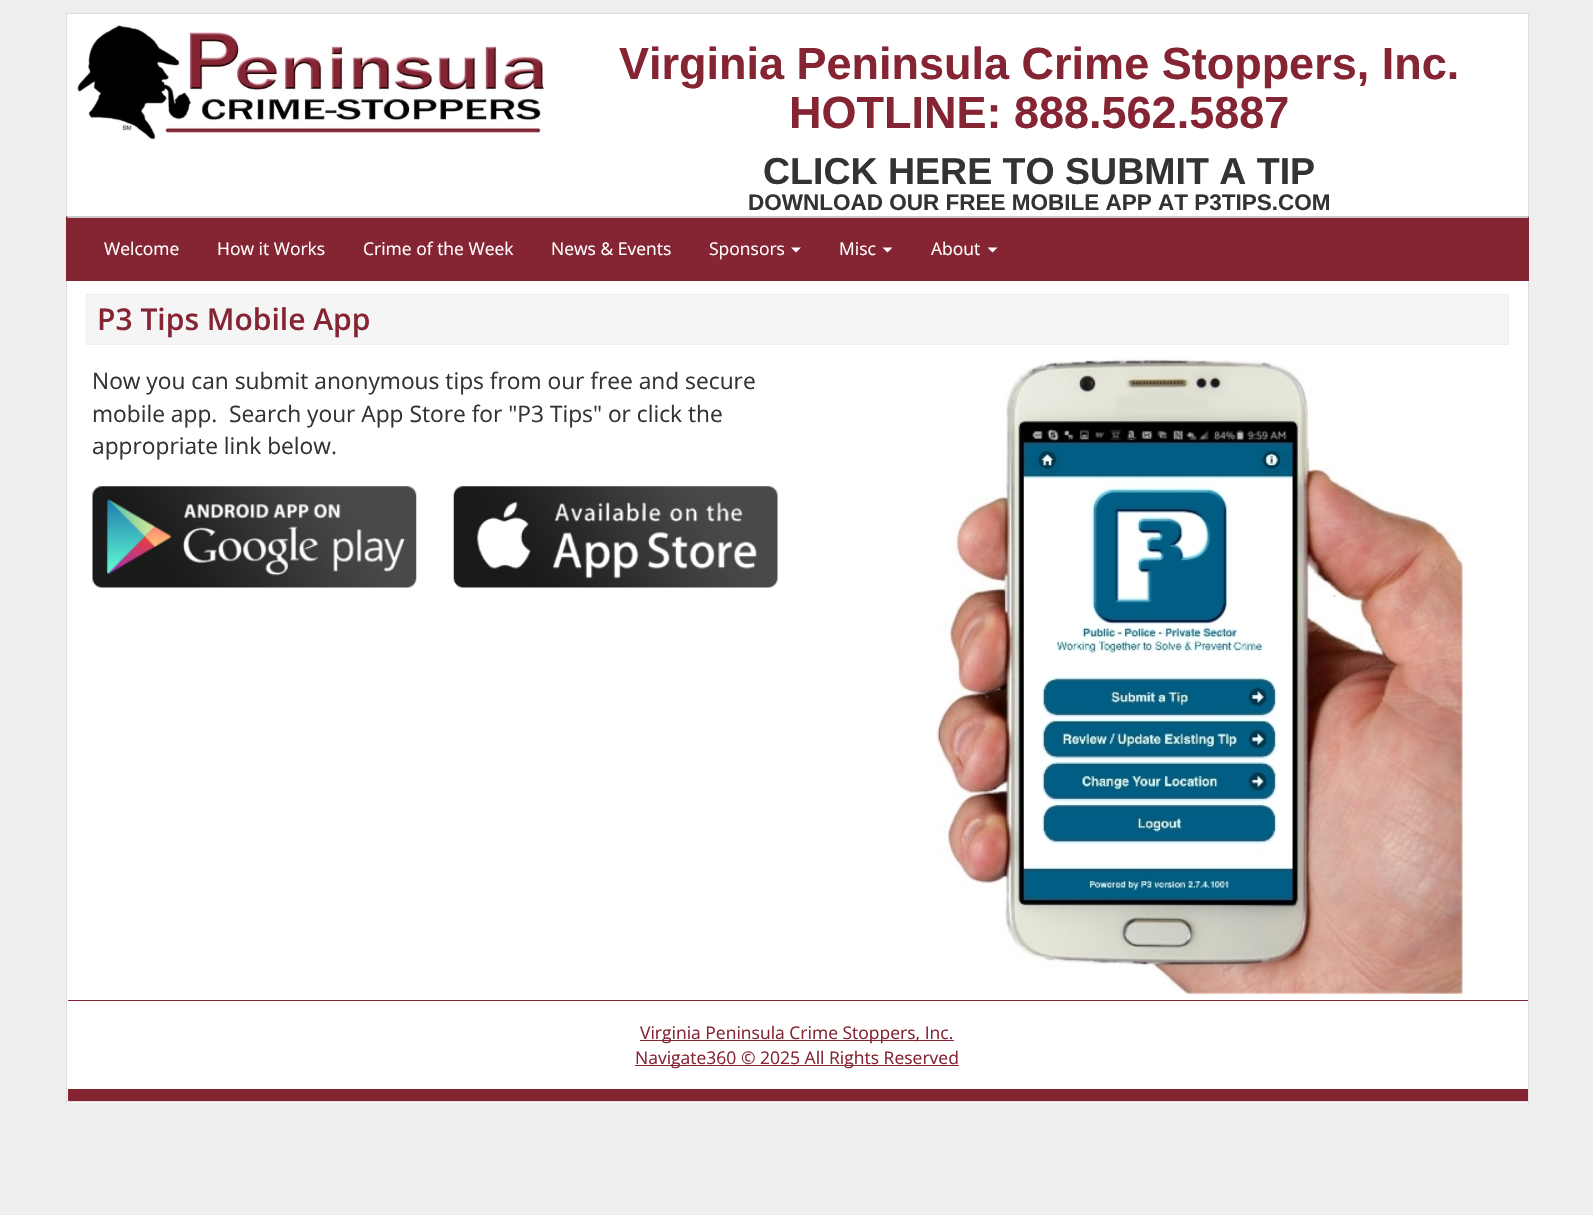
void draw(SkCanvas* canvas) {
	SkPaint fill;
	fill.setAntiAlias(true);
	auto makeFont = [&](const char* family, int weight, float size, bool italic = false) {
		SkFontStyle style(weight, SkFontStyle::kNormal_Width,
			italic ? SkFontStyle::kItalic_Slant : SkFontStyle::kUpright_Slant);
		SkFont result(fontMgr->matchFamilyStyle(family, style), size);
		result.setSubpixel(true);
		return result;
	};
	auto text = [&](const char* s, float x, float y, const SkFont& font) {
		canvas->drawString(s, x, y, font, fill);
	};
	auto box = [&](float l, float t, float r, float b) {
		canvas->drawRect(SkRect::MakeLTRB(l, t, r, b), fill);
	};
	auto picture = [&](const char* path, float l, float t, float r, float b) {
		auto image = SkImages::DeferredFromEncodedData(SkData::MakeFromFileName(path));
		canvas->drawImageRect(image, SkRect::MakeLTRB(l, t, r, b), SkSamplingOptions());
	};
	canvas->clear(0xFFEEEEEE);
	fill.setColor(0xFFFFFFFF);
	box(67, 14, 1528, 216);
	fill.setColor(0xFFDDDDDD);
	box(66, 13, 1529, 14);
	box(1528, 13, 1529, 216);
	box(66, 13, 67, 216);
	picture("image0.png", 77, 25, 544, 140);
	fill.setColor(0xFF852533);
	box(66, 216, 1529, 281);
	fill.setColor(0xFFCCCCCC);
	canvas->drawPath(SkPathBuilder().moveTo(66, 216).lineTo(1529, 216).lineTo(1528, 218).lineTo(68, 218).close().detach(), fill);
	fill.setColor(0xFFFFFFFF);
	canvas->drawPath(SkPathBuilder().moveTo(791, 247.5f).lineTo(801, 247.5f).lineTo(796, 252.5f).close().detach(), fill);
	canvas->drawPath(SkPathBuilder().moveTo(882.5f, 247.5f).lineTo(892.5f, 247.5f).lineTo(887.5f, 252.5f).close().detach(), fill);
	canvas->drawPath(SkPathBuilder().moveTo(987.5f, 247.5f).lineTo(997.5f, 247.5f).lineTo(992.5f, 252.5f).close().detach(), fill);
	box(67, 281, 1528, 1103);
	fill.setColor(0xFFDDDDDD);
	box(1528, 281, 1529, 1103);
	box(66, 1101, 1529, 1102);
	box(66, 281, 67, 1103);
	fill.setColor(0xFFF5F5F5);
	canvas->drawRect(SkRect::MakeLTRB(86.5f, 294.5f, 1508.5f, 344.5f), fill);
	fill.setStyle(SkPaint::kStroke_Style);
	fill.setStrokeWidth(1);
	fill.setColor(0xFFEEEEEE);
	canvas->drawRect(SkRect::MakeLTRB(86.5f, 294.5f, 1508.5f, 344.5f), fill);
	picture("image1.png", 92, 486, 417, 588);
	picture("image2.png", 453, 486, 778, 588);
	picture("image3.png", 936, 358, 1463, 994);
	fill.setStyle(SkPaint::kFill_Style);
	fill.setColor(0xFF852533);
	box(68, 1000, 1528, 1001);
	box(68, 1089, 1528, 1101);
	box(640, 1040, 954, 1041);
	box(635, 1065, 959, 1066);
	auto font1 = makeFont("Liberation Sans", 700, 45);
	text("Virginia Peninsula Crime Stoppers, Inc.", 619, 79, font1);
	text("HOTLINE: 888.562.5887", 789, 128, font1);
	auto font2 = makeFont("Liberation Sans", 700, 37.5f);
	fill.setColor(0xFF333333);
	text("CLICK HERE TO SUBMIT A TIP", 763, 184, font2);
	auto font3 = makeFont("Liberation Sans", 700, 22.5f);
	text("DOWNLOAD OUR FREE MOBILE APP AT P3TIPS.COM", 748, 210, font3);
	auto font4 = makeFont("Open Sans", 400, 17.5f);
	fill.setColor(0xFFFFFFFF);
	text("Welcome", 104, 255, font4);
	text("How it Works", 217, 255, font4);
	text("Crime of the Week", 363, 255, font4);
	text("News & Events", 551, 255, font4);
	text("Sponsors", 709, 255, font4);
	text("Misc", 839, 255, font4);
	text("About", 931, 255, font4);
	auto font5 = makeFont("Open Sans", 600, 30);
	fill.setColor(0xFF852533);
	text("P3 Tips Mobile App", 97, 330, font5);
	auto font6 = makeFont("Open Sans", 400, 22.75f);
	fill.setColor(0xFF333333);
	text("Now you can submit anonymous tips from our free and secure", 92, 389, font6);
	text("mobile app.  Search your App Store for \"P3 Tips\" or click the", 92, 422, font6);
	text("appropriate link below.", 92, 454, font6);
	fill.setColor(0xFF852533);
	text("Virginia Peninsula Crime Stoppers, Inc.", 640, 1039, font4);
	text("Navigate360 © 2025 All Rights Reserved", 635, 1064, font4);
}
